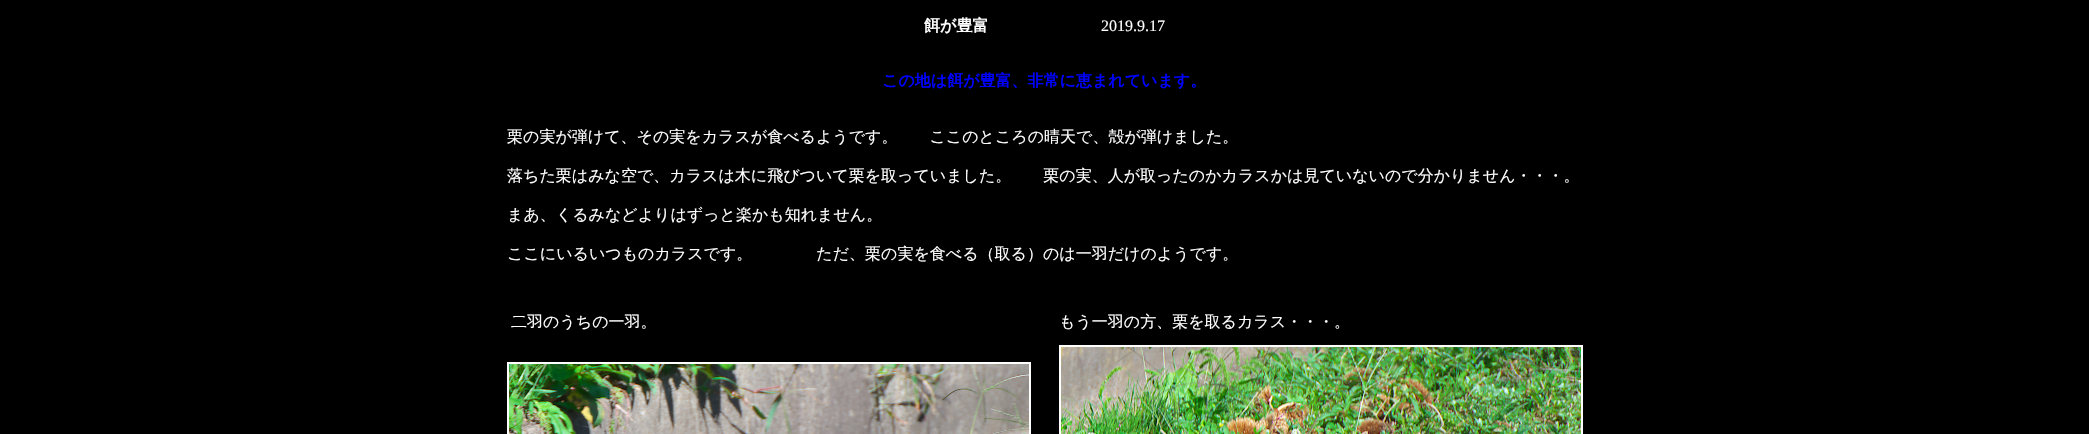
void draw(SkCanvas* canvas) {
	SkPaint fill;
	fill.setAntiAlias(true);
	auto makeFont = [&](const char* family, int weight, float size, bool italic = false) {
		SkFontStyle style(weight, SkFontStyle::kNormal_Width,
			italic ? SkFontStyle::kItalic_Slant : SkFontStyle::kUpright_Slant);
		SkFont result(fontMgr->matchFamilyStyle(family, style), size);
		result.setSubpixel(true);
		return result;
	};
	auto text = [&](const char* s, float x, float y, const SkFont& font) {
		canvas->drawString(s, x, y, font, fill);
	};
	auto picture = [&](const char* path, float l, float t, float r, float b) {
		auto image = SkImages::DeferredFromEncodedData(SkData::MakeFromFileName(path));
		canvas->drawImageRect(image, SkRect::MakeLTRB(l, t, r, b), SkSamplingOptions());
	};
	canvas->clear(0xFF000000);
	fill.setStyle(SkPaint::kStroke_Style);
	fill.setStrokeWidth(2);
	fill.setColor(0xFFFFFFFF);
	canvas->drawRect(SkRect::MakeLTRB(508, 363, 1030, 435), fill);
	picture("image0.png", 509, 364, 1029, 434);
	canvas->drawRect(SkRect::MakeLTRB(1060, 346, 1582, 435), fill);
	picture("image1.png", 1061, 347, 1581, 434);
	auto font1 = makeFont("WenQuanYi Zen Hei", 700, 16);
	fill.setStyle(SkPaint::kFill_Style);
	text("餌が豊富", 924, 31, font1);
	auto font2 = makeFont("Liberation Serif", 400, 16);
	text("2019.9.17", 1101, 31, font2);
	fill.setColor(0xFF0000FF);
	text("この地は餌が豊富、非常に恵まれています。", 882, 86, font1);
	auto font3 = makeFont("WenQuanYi Zen Hei", 500, 16);
	fill.setColor(0xFFFFFFFF);
	text("栗の実が弾けて、その実をカラスが食べるようです。　　ここのところの晴天で、殻が弾けました。", 507, 142, font3);
	text("落ちた栗はみな空で、カラスは木に飛びついて栗を取っていました。　　栗の実、人が取ったのかカラスかは見ていないので分かりません・・・。", 507, 181, font3);
	text("まあ、くるみなどよりはずっと楽かも知れません。", 507, 220, font3);
	text("ここにいるいつものカラスです。　　　　ただ、栗の実を食べる（取る）のは一羽だけのようです。", 507, 259, font3);
	text("二羽のうちの一羽。", 511, 327, font3);
	text("もう一羽の方、栗を取るカラス・・・。", 1059, 327, font3);
}
